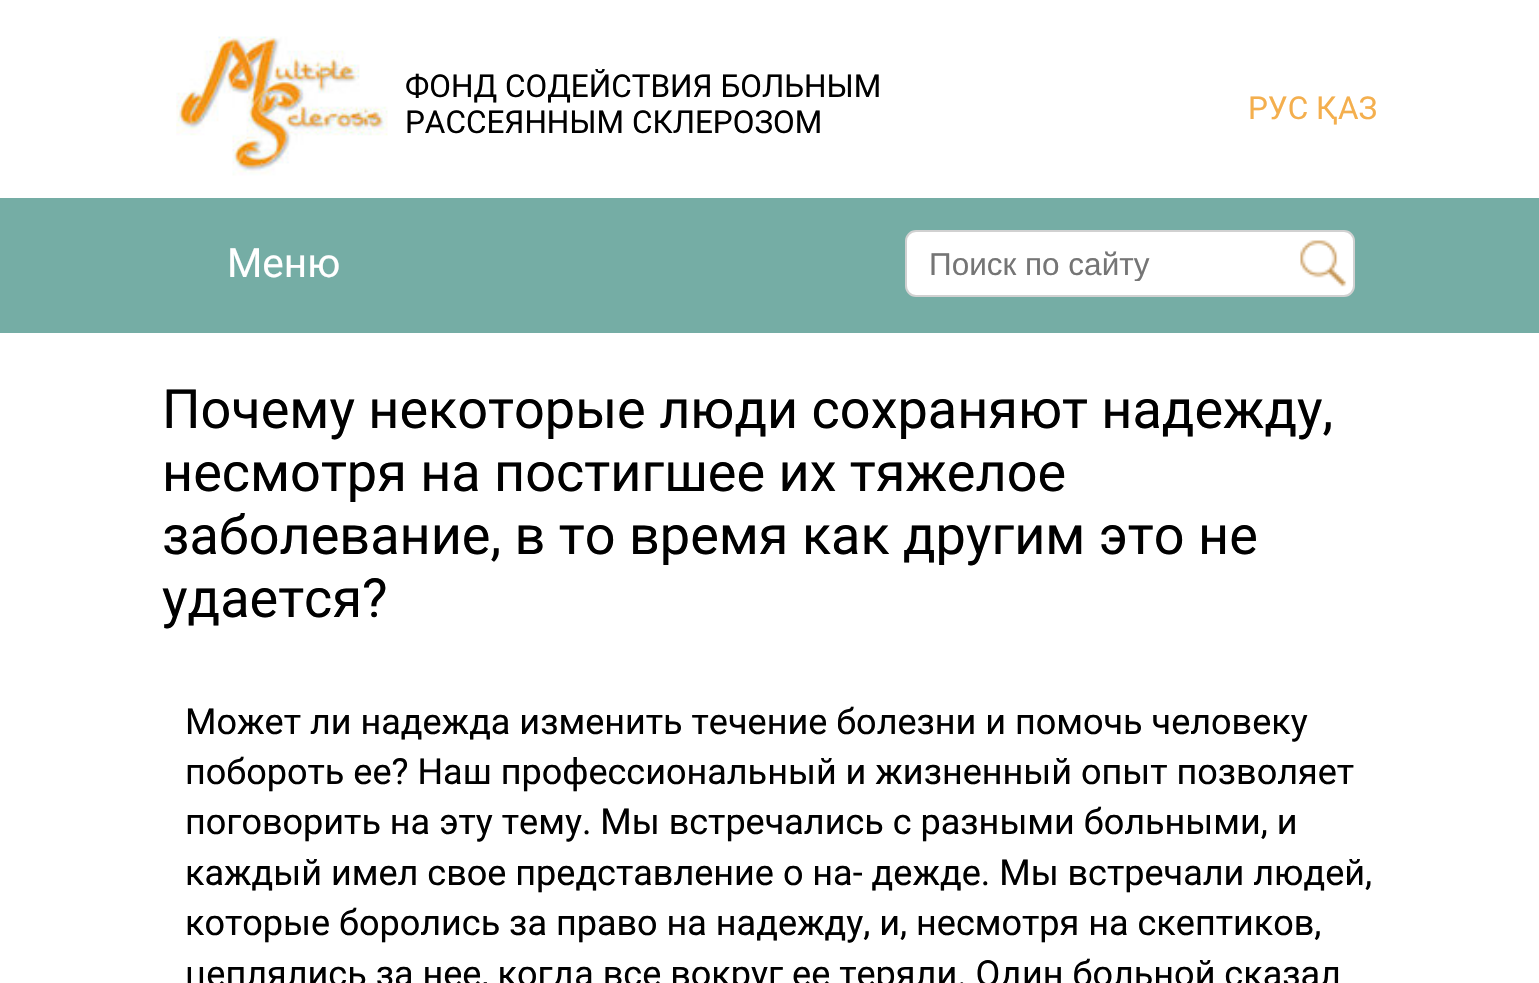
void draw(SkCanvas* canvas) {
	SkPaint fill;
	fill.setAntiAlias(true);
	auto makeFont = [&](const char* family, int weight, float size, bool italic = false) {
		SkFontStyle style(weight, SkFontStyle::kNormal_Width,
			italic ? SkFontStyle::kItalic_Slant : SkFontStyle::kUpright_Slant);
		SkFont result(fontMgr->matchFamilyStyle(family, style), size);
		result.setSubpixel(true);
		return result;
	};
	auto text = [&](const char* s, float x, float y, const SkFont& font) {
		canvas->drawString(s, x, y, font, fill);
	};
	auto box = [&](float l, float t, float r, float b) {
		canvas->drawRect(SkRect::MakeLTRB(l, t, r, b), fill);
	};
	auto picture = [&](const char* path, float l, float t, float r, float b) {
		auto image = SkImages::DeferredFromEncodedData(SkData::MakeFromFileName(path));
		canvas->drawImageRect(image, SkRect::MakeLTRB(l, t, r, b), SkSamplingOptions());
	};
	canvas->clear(0xFFFFFFFF);
	picture("image0.png", 176, 36, 388, 176);
	fill.setColor(0xFF75ADA5);
	box(0, 198, 1539, 333);
	fill.setColor(0xFFFFFFFF);
	canvas->drawRoundRect(SkRect::MakeLTRB(906, 231, 1354, 296), 10, 10, fill);
	fill.setStyle(SkPaint::kStroke_Style);
	fill.setStrokeWidth(2);
	fill.setColor(0xFFD1D1D1);
	canvas->drawRoundRect(SkRect::MakeLTRB(906, 231, 1354, 296), 10, 10, fill);
	picture("image1.png", 1300, 240, 1347, 287);
	auto font1 = makeFont("Roboto", 400, 31.5f);
	fill.setStyle(SkPaint::kFill_Style);
	fill.setColor(0xFF000000);
	text("ФОНД СОДЕЙСТВИЯ БОЛЬНЫМ", 405, 97, font1);
	text("РАССЕЯННЫМ СКЛЕРОЗОМ", 405, 133, font1);
	fill.setColor(0xFFF4AF4E);
	text("РУС ҚАЗ", 1248, 119, font1);
	auto font2 = makeFont("Roboto", 400, 40.5f);
	fill.setColor(0xFFFFFFFF);
	text("Меню", 227, 277, font2);
	canvas->save();
	canvas->clipRect(SkRect::MakeLTRB(929, 245, 1330, 281));
	auto font3 = makeFont("Liberation Sans", 400, 31.5f);
	fill.setColor(0xFF757575);
	text("Поиск по сайту", 929, 275, font3);
	canvas->restore();
	auto font4 = makeFont("Roboto", 400, 54);
	fill.setColor(0xFF000000);
	text("Почему некоторые люди сохраняют надежду,", 162, 428, font4);
	text("несмотря на постигшее их тяжелое", 162, 491, font4);
	text("заболевание, в то время как другим это не", 162, 554, font4);
	text("удается?", 162, 617, font4);
	auto font5 = makeFont("Roboto", 400, 36);
	text("Может ли надежда изменить течение болезни и помочь человеку", 185, 734, font5);
	text("побороть ее? Наш профессиональный и жизненный опыт позволяет", 185, 784, font5);
	text("поговорить на эту тему. Мы встречались с разными больными, и", 185, 834, font5);
	text("каждый имел свое представление о на- дежде. Мы встречали людей,", 185, 885, font5);
	text("которые боролись за право на надежду, и, несмотря на скептиков,", 185, 935, font5);
	text("цеплялись за нее, когда все вокруг ее теряли. Один больной сказал", 185, 986, font5);
}
